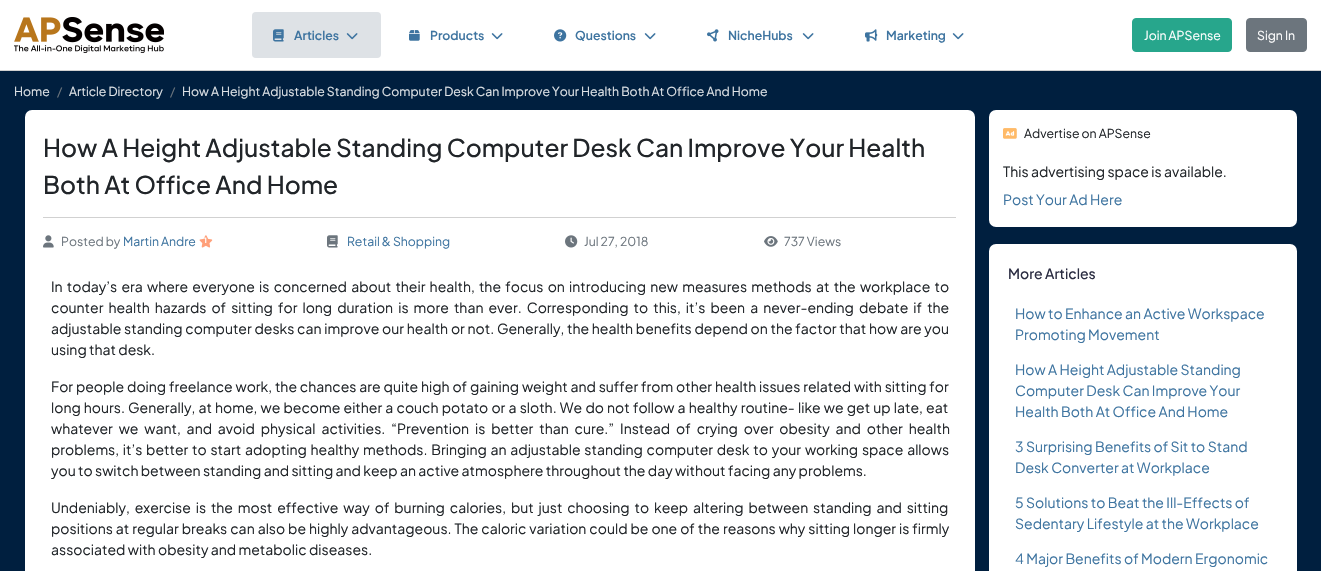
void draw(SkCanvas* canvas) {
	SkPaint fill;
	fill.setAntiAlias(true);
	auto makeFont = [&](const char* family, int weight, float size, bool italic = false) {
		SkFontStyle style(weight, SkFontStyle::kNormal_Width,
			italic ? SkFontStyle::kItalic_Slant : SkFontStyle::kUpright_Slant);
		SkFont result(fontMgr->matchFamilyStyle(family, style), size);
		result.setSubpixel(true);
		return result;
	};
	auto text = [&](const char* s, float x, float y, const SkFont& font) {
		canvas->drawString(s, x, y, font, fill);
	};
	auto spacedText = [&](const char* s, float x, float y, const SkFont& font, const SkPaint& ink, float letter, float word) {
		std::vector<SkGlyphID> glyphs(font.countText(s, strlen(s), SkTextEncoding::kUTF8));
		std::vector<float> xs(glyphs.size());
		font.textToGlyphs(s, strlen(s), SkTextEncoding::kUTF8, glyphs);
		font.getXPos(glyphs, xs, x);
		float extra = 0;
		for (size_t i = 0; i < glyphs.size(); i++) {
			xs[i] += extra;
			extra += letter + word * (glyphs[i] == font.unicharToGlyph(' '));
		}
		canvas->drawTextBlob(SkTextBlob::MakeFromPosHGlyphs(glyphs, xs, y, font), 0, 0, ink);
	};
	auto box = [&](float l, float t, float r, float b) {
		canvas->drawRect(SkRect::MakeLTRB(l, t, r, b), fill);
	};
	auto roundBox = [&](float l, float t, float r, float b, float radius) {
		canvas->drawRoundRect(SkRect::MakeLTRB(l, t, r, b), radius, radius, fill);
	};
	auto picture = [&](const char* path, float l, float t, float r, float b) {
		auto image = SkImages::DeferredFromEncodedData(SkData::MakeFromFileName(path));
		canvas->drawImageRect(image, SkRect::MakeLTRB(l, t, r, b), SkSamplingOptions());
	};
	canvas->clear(0xFF001F3F);
	fill.setColor(0xFFFFFFFF);
	box(0, 0, 1321, 70);
	fill.setColor(0xFFD1D1D1);
	box(0, 70, 1321, 71);
	picture("image0.png", 14, 17, 164, 53);
	fill.setColor(0xFFDEE2E6);
	roundBox(252, 12, 381, 58, 4);
	picture("image1.png", 273, 29, 284, 42);
	picture("image2.png", 346, 33, 358, 40);
	picture("image3.png", 409, 30, 420, 41);
	picture("image4.png", 491, 33, 503, 40);
	picture("image5.png", 554, 29, 567, 42);
	picture("image4.png", 644, 33, 656, 40);
	picture("image6.png", 707, 29, 719, 42);
	picture("image4.png", 802, 33, 814, 40);
	picture("image7.png", 865, 29, 878, 42);
	picture("image4.png", 952, 33, 964, 40);
	fill.setColor(0xFF27A68C);
	canvas->drawRoundRect(SkRect::MakeLTRB(1132.5f, 18.5f, 1231.5f, 51.5f), 3.5f, 3.5f, fill);
	fill.setStyle(SkPaint::kStroke_Style);
	fill.setStrokeWidth(1);
	canvas->drawRoundRect(SkRect::MakeLTRB(1132.5f, 18.5f, 1231.5f, 51.5f), 3.5f, 3.5f, fill);
	fill.setStyle(SkPaint::kFill_Style);
	fill.setColor(0xFF6C757D);
	canvas->drawRoundRect(SkRect::MakeLTRB(1246.5f, 18.5f, 1306.5f, 51.5f), 3.5f, 3.5f, fill);
	fill.setStyle(SkPaint::kStroke_Style);
	canvas->drawRoundRect(SkRect::MakeLTRB(1246.5f, 18.5f, 1306.5f, 51.5f), 3.5f, 3.5f, fill);
	fill.setStyle(SkPaint::kFill_Style);
	fill.setColor(0xFFFFFFFF);
	roundBox(25, 110, 975, 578, 7);
	fill.setColor(0xFFD1D1D1);
	box(43, 217, 956, 218);
	picture("image8.png", 43, 235, 54, 248);
	picture("image9.png", 199, 235, 213, 248);
	picture("image10.png", 327, 235, 338, 248);
	picture("image11.png", 565, 235, 578, 248);
	picture("image12.png", 764, 236, 778, 247);
	fill.setColor(0xFFFFFFFF);
	roundBox(989, 110, 1297, 227, 7);
	picture("image13.png", 1003, 128, 1017, 139);
	roundBox(989, 244, 1297, 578, 7);
	auto font1 = makeFont("Plus Jakarta Sans", 600, 12.25f);
	fill.setColor(0xFF3E74A0);
	text("Articles", 294, 40, font1);
	text("Products", 430, 40, font1);
	text("Questions", 575, 40, font1);
	text("NicheHubs", 728, 40, font1);
	text("Marketing", 886, 40, font1);
	auto font2 = makeFont("Plus Jakarta Sans", 400, 12.25f);
	fill.setColor(0xFFFFFFFF);
	text("Join APSense", 1144, 40, font2);
	text("Sign In", 1257, 40, font2);
	fill.setColor(0xFFDEE2E6);
	text("Home", 14, 96, font2);
	fill.setColor(0xFF6C757D);
	text("/", 57, 96, font2);
	fill.setColor(0xFFDEE2E6);
	text("Article Directory", 69, 96, font2);
	fill.setColor(0xFF6C757D);
	text("/", 170, 96, font2);
	fill.setColor(0xFFDEE2E6);
	text("How A Height Adjustable Standing Computer Desk Can Improve Your Health Both At Office And Home", 182, 96, font2);
	auto font3 = makeFont("Plus Jakarta Sans", 500, 24.5f);
	fill.setColor(0xFF212529);
	text("How A Height Adjustable Standing Computer Desk Can Improve Your Health", 43, 157, font3);
	text("Both At Office And Home", 43, 194, font3);
	fill.setColor(0xFF6C757D);
	text("Posted by", 61, 246, font2);
	fill.setColor(0xFF3E74A0);
	text("Martin Andre", 123, 246, font2);
	auto font4 = makeFont("Plus Jakarta Sans", 700, 7);
	fill.setColor(0xFFFFFFFF);
	text("1", 204, 243, font4);
	fill.setColor(0xFF3E74A0);
	text("Retail & Shopping", 347, 246, font2);
	fill.setColor(0xFF6C757D);
	text("Jul 27, 2018", 584, 246, font2);
	text("737 Views", 784, 246, font2);
	auto font5 = makeFont("Plus Jakarta Sans", 400, 14);
	fill.setColor(0xFF212529);
	spacedText("In today’s era where everyone is concerned about their health, the focus on introducing new measures methods at the workplace to", 51, 292, font5, fill, 0, 1.85f);
	spacedText("counter health hazards of sitting for long duration is more than ever. Corresponding to this, it’s been a never-ending debate if the", 51, 313, font5, fill, 0, 2.7f);
	spacedText("adjustable standing computer desks can improve our health or not. Generally, the health benefits depend on the factor that how are you", 51, 334, font5, fill, 0, 0.4f);
	text("using that desk.", 51, 355, font5);
	spacedText("For people doing freelance work, the chances are quite high of gaining weight and suffer from other health issues related with sitting for", 51, 392, font5, fill, 0, 0.5f);
	spacedText("long hours. Generally, at home, we become either a couch potato or a sloth. We do not follow a healthy routine- like we get up late, eat", 51, 413, font5, fill, 0, 0.8f);
	spacedText("whatever we want, and avoid physical activities. “Prevention is better than cure.” Instead of crying over obesity and other health", 51, 434, font5, fill, 0, 3.5f);
	spacedText("problems, it’s better to start adopting healthy methods. Bringing an adjustable standing computer desk to your working space allows", 51, 455, font5, fill, 0, 1.4f);
	text("you to switch between standing and sitting and keep an active atmosphere throughout the day without facing any problems.", 51, 476, font5);
	spacedText("Undeniably, exercise is the most effective way of burning calories, but just choosing to keep altering between standing and sitting", 51, 513, font5, fill, 0, 2.5f);
	spacedText("positions at regular breaks can also be highly advantageous. The caloric variation could be one of the reasons why sitting longer is firmly", 51, 534, font5, fill, 0, 0.6f);
	text("associated with obesity and metabolic diseases.", 51, 555, font5);
	text("Advertise on APSense", 1024, 138, font2);
	text("This advertising space is available.", 1003, 177, font5);
	fill.setColor(0xFF3E74A0);
	text("Post Your Ad Here", 1003, 205, font5);
	auto font6 = makeFont("Plus Jakarta Sans", 500, 14);
	fill.setColor(0xFF2B2D42);
	text("More Articles", 1008, 279, font6);
	fill.setColor(0xFF3E74A0);
	text("How to Enhance an Active Workspace", 1015, 319, font5);
	text("Promoting Movement", 1015, 340, font5);
	text("How A Height Adjustable Standing", 1015, 375, font5);
	text("Computer Desk Can Improve Your", 1015, 396, font5);
	text("Health Both At Office And Home", 1015, 417, font5);
	text("3 Surprising Benefits of Sit to Stand", 1015, 452, font5);
	text("Desk Converter at Workplace", 1015, 473, font5);
	text("5 Solutions to Beat the Ill-Effects of", 1015, 508, font5);
	text("Sedentary Lifestyle at the Workplace", 1015, 529, font5);
	text("4 Major Benefits of Modern Ergonomic", 1015, 564, font5);
}
